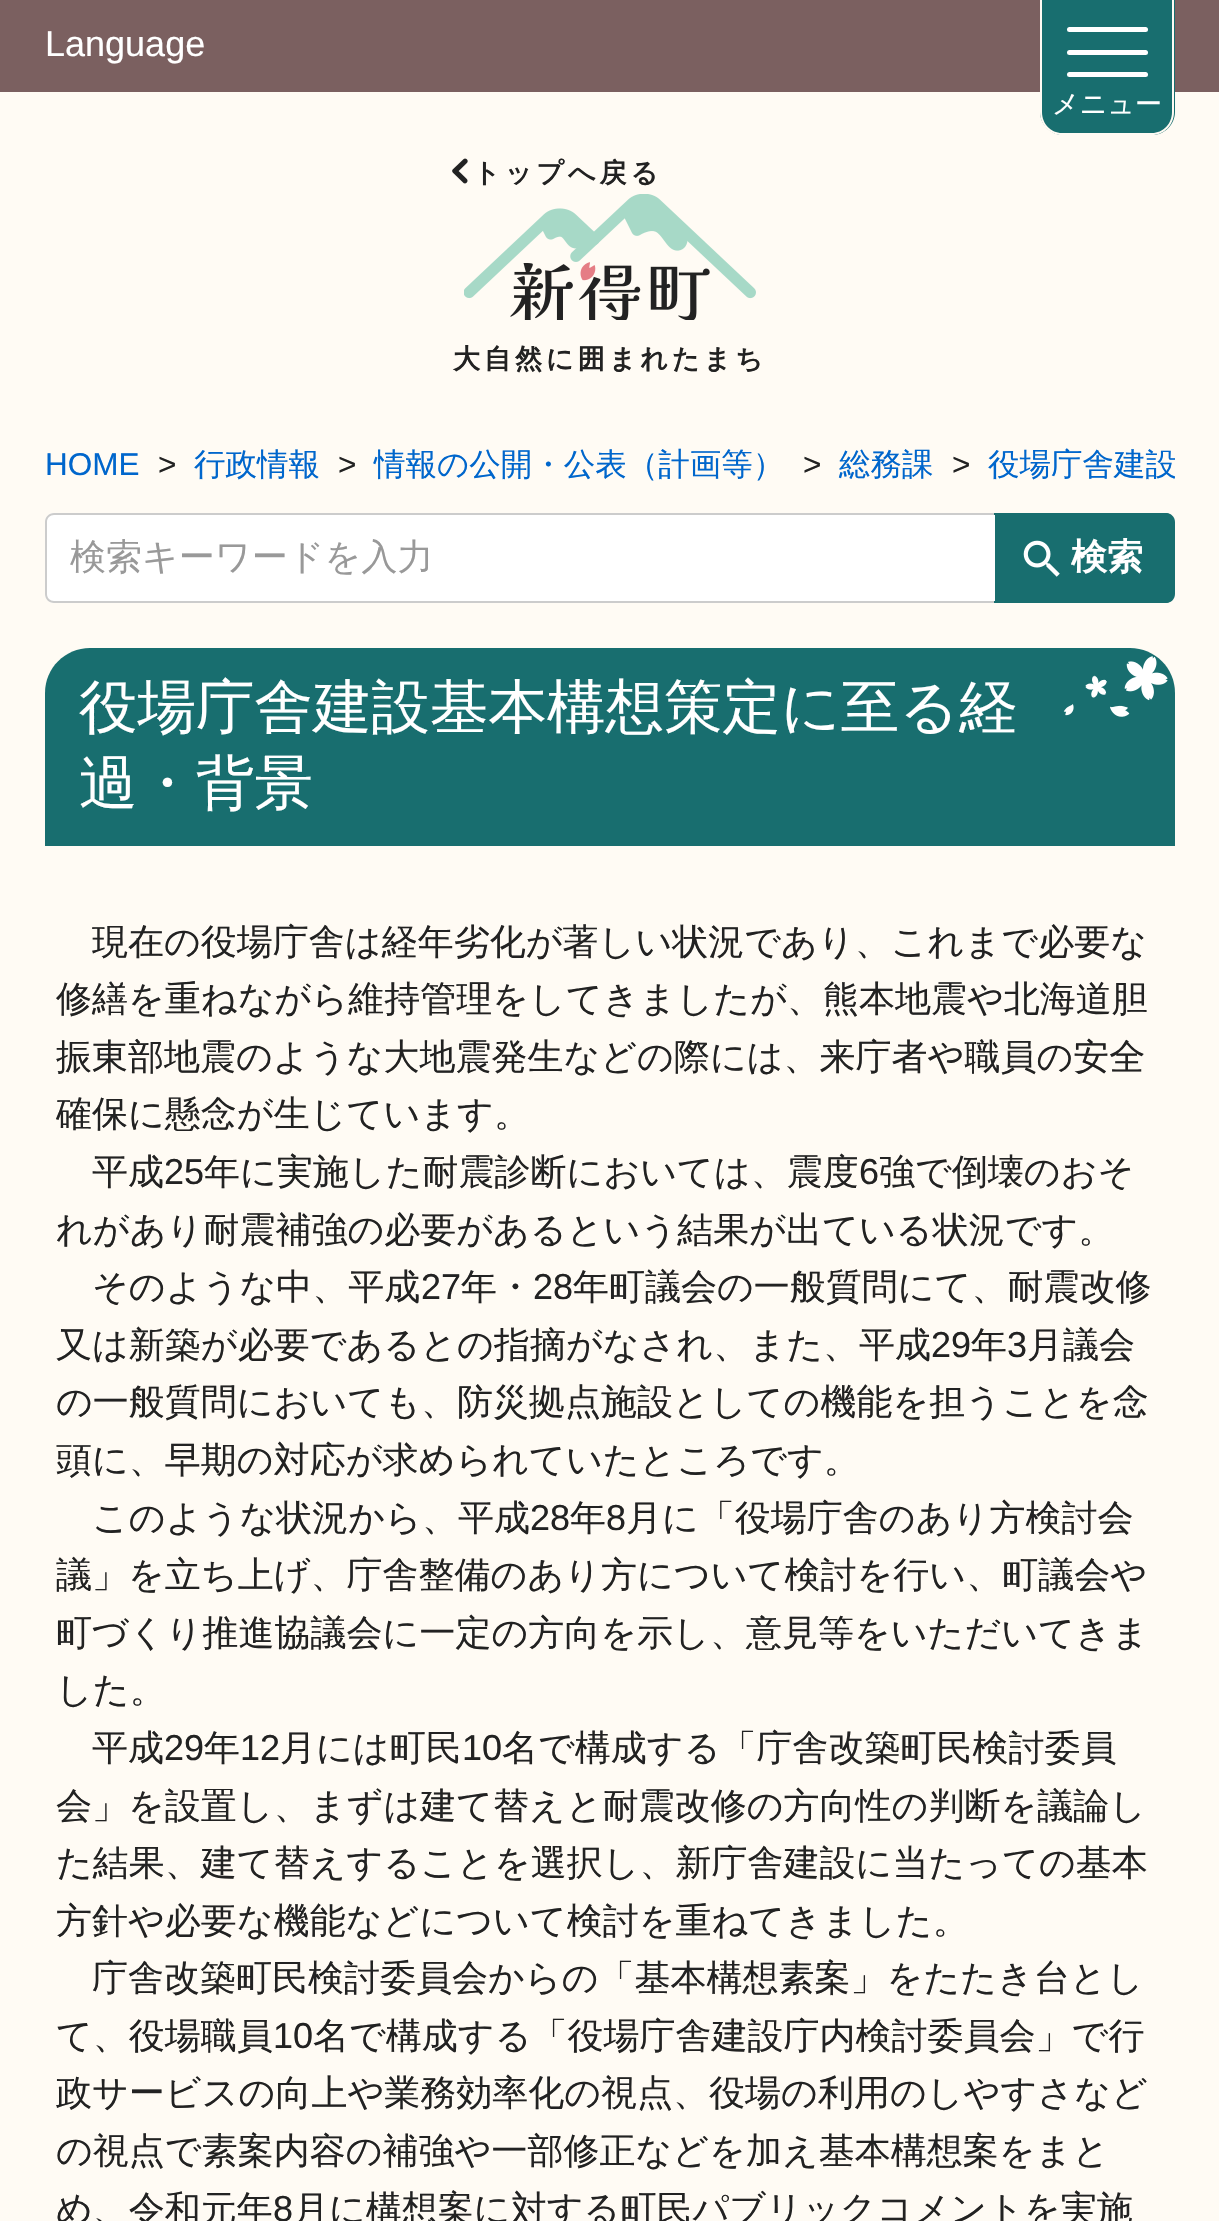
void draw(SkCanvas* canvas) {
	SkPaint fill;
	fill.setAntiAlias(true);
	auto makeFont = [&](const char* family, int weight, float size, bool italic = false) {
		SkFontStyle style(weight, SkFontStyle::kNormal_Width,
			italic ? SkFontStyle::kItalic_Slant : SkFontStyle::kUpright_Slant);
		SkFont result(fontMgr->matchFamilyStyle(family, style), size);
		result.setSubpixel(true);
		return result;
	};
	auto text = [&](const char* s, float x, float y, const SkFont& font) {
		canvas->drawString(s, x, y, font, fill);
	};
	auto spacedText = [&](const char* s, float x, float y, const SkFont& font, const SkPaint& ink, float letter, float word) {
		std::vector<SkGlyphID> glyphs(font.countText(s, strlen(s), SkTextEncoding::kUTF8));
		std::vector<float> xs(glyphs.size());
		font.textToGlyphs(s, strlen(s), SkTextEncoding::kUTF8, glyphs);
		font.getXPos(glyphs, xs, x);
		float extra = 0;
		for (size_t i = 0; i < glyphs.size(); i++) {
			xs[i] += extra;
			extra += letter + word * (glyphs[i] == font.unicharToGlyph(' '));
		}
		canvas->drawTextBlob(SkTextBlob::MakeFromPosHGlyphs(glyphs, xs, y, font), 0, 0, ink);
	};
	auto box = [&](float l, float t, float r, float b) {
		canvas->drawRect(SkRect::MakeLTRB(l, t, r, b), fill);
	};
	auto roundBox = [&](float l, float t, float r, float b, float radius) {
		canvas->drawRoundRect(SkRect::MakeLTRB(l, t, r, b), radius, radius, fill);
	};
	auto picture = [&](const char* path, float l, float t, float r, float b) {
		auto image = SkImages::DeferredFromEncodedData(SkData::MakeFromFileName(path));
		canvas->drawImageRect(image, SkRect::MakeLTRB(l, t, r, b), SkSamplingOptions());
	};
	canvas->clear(0xFFFFFBF4);
	fill.setColor(0xFF7B6060);
	box(0, 0, 1219, 92);
	fill.setColor(0xFF186E6F);
	canvas->drawPath(SkPathBuilder().moveTo(1040, 0).lineTo(1175, 0).lineTo(1175, 112).cubicTo(1175, 124.5f, 1164.5f, 135, 1152, 135).lineTo(1063, 135).cubicTo(1050.5f, 135, 1040, 124.5f, 1040, 112).close().detach(), fill);
	fill.setColor(0xFFFFFBF4);
	canvas->drawPath(SkPathBuilder(SkPathFillType::kEvenOdd).moveTo(1040, 0).lineTo(1174, 0).lineTo(1174, 112).cubicTo(1174, 125, 1164, 135, 1152, 135).lineTo(1062, 135).cubicTo(1050, 135, 1040, 125, 1040, 112).close().moveTo(1042, 0).lineTo(1172, 0).lineTo(1172, 112).cubicTo(1172, 124, 1163, 133, 1152, 133).lineTo(1062, 133).cubicTo(1051, 133, 1042, 124, 1042, 112).close().detach(), fill);
	fill.setColor(0xFFFFFFFF);
	roundBox(1067, 27, 1148, 32, 2.5f);
	roundBox(1067, 50, 1148, 55, 2.5f);
	roundBox(1067, 72, 1148, 77, 2.5f);
	picture("image0.png", 452, 158, 468, 184);
	picture("image1.png", 464, 194, 756, 320);
	canvas->drawPath(SkPathBuilder().moveTo(54, 513).lineTo(995, 513).lineTo(995, 603).lineTo(54, 603).cubicTo(49, 603, 45, 599, 45, 594).lineTo(45, 522).cubicTo(45, 517, 49, 513, 54, 513).close().detach(), fill);
	fill.setColor(0xFFCCCCCC);
	canvas->drawPath(SkPathBuilder(SkPathFillType::kEvenOdd).moveTo(54, 513).lineTo(994, 513).lineTo(994, 603).lineTo(54, 603).cubicTo(49, 603, 45, 599, 45, 594).lineTo(45, 522).cubicTo(45, 517, 49, 513, 54, 513).close().moveTo(54, 515).lineTo(994, 515).lineTo(994, 601).lineTo(54, 601).cubicTo(50, 601, 47, 598, 47, 594).lineTo(47, 522).cubicTo(47, 518, 50, 515, 54, 515).close().detach(), fill);
	fill.setColor(0xFF186E6F);
	canvas->drawPath(SkPathBuilder().moveTo(995, 513).lineTo(1166, 513).cubicTo(1171, 513, 1175, 517, 1175, 522).lineTo(1175, 594).cubicTo(1175, 599, 1171, 603, 1166, 603).lineTo(995, 603).close().detach(), fill);
	canvas->drawPath(SkPathBuilder(SkPathFillType::kEvenOdd).moveTo(994, 513).lineTo(1166, 513).cubicTo(1170, 513, 1174, 517, 1174, 522).lineTo(1174, 594).cubicTo(1174, 599, 1170, 603, 1166, 603).lineTo(994, 603).close().moveTo(994, 515).lineTo(1166, 515).cubicTo(1169, 515, 1172, 518, 1172, 522).lineTo(1172, 594).cubicTo(1172, 598, 1169, 601, 1166, 601).lineTo(994, 601).close().detach(), fill);
	picture("image2.png", 1023, 540, 1060, 577);
	canvas->drawPath(SkPathBuilder().moveTo(90, 648).lineTo(1130, 648).cubicTo(1155, 648, 1175, 668, 1175, 693).lineTo(1175, 846).lineTo(45, 846).lineTo(45, 693).cubicTo(45, 668, 65, 648, 90, 648).close().detach(), fill);
	picture("image3.png", 1063, 656, 1168, 717);
	auto font1 = makeFont("Liberation Sans", 400, 36);
	fill.setColor(0xFFFFFFFF);
	text("Language", 45, 56, font1);
	auto font2 = makeFont("WenQuanYi Zen Hei", 500, 27);
	text("メニュー", 1052, 113, font2);
	auto font3 = makeFont("WenQuanYi Zen Hei", 700, 27);
	fill.setColor(0xFF222222);
	spacedText("トップへ戻る", 473, 182, font3, fill, 4, 0);
	spacedText("大自然に囲まれたまち", 453, 368, font3, fill, 4, 0);
	auto font4 = makeFont("Liberation Sans", 400, 31.5f);
	fill.setColor(0xFF0066CC);
	text("HOME", 45, 475, font4);
	fill.setColor(0xFF222222);
	text(">", 158, 475, font4);
	auto font5 = makeFont("WenQuanYi Zen Hei", 500, 31.5f);
	fill.setColor(0xFF0066CC);
	text("行政情報", 194, 475, font5);
	fill.setColor(0xFF222222);
	text(">", 338, 475, font4);
	fill.setColor(0xFF0066CC);
	text("情報の公開・公表（計画等）", 374, 475, font5);
	fill.setColor(0xFF222222);
	text(">", 803, 475, font4);
	fill.setColor(0xFF0066CC);
	text("総務課", 839, 475, font5);
	fill.setColor(0xFF222222);
	text(">", 952, 475, font4);
	canvas->save();
	canvas->clipRect(SkRect::MakeLTRB(45, 419, 1175, 502));
	fill.setColor(0xFF0066CC);
	text("役場庁舎建設", 988, 475, font5);
	canvas->restore();
	auto font6 = makeFont("WenQuanYi Zen Hei", 500, 36);
	fill.setColor(0xFF999999);
	text("検索キーワードを入力", 70, 569, font6);
	auto font7 = makeFont("WenQuanYi Zen Hei", 700, 36);
	fill.setColor(0xFFFFFFFF);
	text("検索", 1071, 569, font7);
	auto font8 = makeFont("WenQuanYi Zen Hei", 500, 58.5f);
	text("役場庁舎建設基本構想策定に至る経", 79, 727, font8);
	text("過・背景", 79, 803, font8);
	fill.setColor(0xFF222222);
	text("現在の役場庁舎は経年劣化が著しい状況であり、これまで必要な", 92, 954, font6);
	text("修繕を重ねながら維持管理をしてきましたが、熊本地震や北海道胆", 56, 1011, font6);
	text("振東部地震のような大地震発生などの際には、来庁者や職員の安全", 56, 1069, font6);
	text("確保に懸念が生じています。", 56, 1126, font6);
	text("平成", 92, 1184, font6);
	text("25", 164, 1184, font1);
	text("年に実施した耐震診断においては、震度", 204, 1184, font6);
	text("6", 859, 1184, font1);
	text("強で倒壊のおそ", 879, 1184, font6);
	text("れがあり耐震補強の必要があるという結果が出ている状況です。", 56, 1242, font6);
	text("そのような中、平成", 92, 1299, font6);
	text("27", 421, 1299, font1);
	text("年・", 461, 1299, font6);
	text("28", 533, 1299, font1);
	text("年町議会の一般質問にて、耐震改修", 573, 1299, font6);
	text("又は新築が必要であるとの指摘がなされ、また、平成", 56, 1357, font6);
	text("29", 931, 1357, font1);
	text("年", 971, 1357, font6);
	text("3", 1007, 1357, font1);
	text("月議会", 1027, 1357, font6);
	text("の一般質問においても、防災拠点施設としての機能を担うことを念", 56, 1414, font6);
	text("頭に、早期の対応が求められていたところです。", 56, 1472, font6);
	text("このような状況から、平成", 92, 1530, font6);
	text("28", 530, 1530, font1);
	text("年", 570, 1530, font6);
	text("8", 606, 1530, font1);
	text("月に「役場庁舎のあり方検討会", 626, 1530, font6);
	text("議」を立ち上げ、庁舎整備のあり方について検討を行い、町議会や", 56, 1587, font6);
	text("町づくり推進協議会に一定の方向を示し、意見等をいただいてきま", 56, 1645, font6);
	text("した。", 56, 1702, font6);
	text("平成", 92, 1760, font6);
	text("29", 164, 1760, font1);
	text("年", 204, 1760, font6);
	text("12", 240, 1760, font1);
	text("月には町民", 280, 1760, font6);
	text("10", 462, 1760, font1);
	text("名で構成する「庁舎改築町民検討委員", 502, 1760, font6);
	text("会」を設置し、まずは建て替えと耐震改修の方向性の判断を議論し", 56, 1818, font6);
	text("た結果、建て替えすることを選択し、新庁舎建設に当たっての基本", 56, 1875, font6);
	text("方針や必要な機能などについて検討を重ねてきました。", 56, 1933, font6);
	text("庁舎改築町民検討委員会からの「基本構想素案」をたたき台とし", 92, 1990, font6);
	text("て、役場職員", 56, 2048, font6);
	text("10", 273, 2048, font1);
	text("名で構成する「役場庁舎建設庁内検討委員会」で行", 313, 2048, font6);
	text("政サービスの向上や業務効率化の視点、役場の利用のしやすさなど", 56, 2105, font6);
	text("の視点で素案内容の補強や一部修正などを加え基本構想案をまと", 56, 2163, font6);
	text("め、令和元年", 56, 2221, font6);
	text("8", 273, 2221, font1);
	text("月に構想案に対する町民パブリックコメントを実施", 293, 2221, font6);
}
